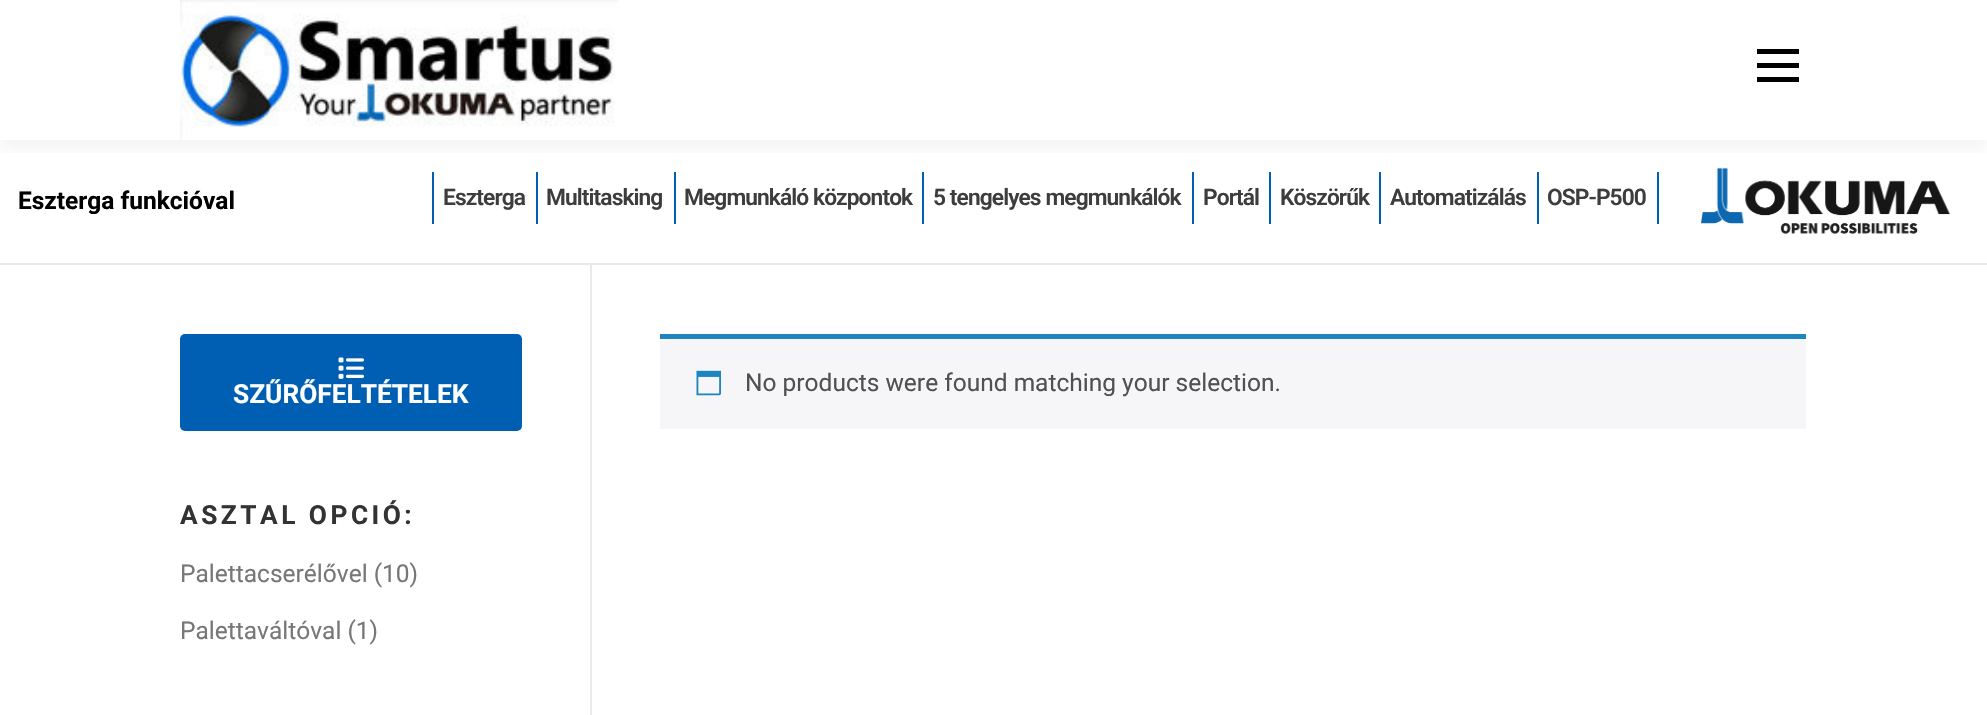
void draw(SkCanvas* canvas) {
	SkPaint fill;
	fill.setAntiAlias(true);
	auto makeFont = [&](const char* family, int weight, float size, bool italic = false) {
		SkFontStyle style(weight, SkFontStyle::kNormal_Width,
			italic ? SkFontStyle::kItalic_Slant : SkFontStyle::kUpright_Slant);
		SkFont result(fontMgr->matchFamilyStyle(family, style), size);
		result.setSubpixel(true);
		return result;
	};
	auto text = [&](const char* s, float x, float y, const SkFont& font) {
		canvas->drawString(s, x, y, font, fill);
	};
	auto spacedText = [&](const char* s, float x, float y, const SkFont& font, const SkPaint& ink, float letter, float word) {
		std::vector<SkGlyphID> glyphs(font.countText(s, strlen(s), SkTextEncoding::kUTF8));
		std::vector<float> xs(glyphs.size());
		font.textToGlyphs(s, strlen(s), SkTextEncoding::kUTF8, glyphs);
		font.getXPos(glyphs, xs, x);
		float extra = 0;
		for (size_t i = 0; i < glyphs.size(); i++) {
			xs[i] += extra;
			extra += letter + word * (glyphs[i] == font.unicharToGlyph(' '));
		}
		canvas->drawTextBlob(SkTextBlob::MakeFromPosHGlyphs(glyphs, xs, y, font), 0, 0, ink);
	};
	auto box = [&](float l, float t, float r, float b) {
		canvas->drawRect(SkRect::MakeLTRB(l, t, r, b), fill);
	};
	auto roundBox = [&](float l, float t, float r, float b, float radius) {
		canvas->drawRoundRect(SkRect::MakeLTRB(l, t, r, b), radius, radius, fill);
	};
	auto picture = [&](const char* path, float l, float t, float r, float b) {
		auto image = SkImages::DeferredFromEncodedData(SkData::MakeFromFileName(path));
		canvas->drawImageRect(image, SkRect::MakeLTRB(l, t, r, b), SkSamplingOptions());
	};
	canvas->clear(0xFFFFFFFF);
	fill.setColor(0xFF005EB3);
	box(536, 172, 538, 224);
	box(432, 172, 434, 224);
	box(674, 172, 676, 224);
	box(922, 172, 924, 224);
	box(1192, 172, 1194, 224);
	box(1269, 172, 1271, 224);
	box(1379, 172, 1381, 224);
	box(1537, 172, 1539, 224);
	box(1657, 172, 1659, 224);
	picture("image1.png", 1700, 167, 1950, 234);
	canvas->save();
	canvas->clipRect(SkRect::MakeLTRB(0, 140, 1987, 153));
	fill.setColor(0x0F323232);
	fill.setMaskFilter(SkMaskFilter::MakeBlur(kNormal_SkBlurStyle, 9));
	canvas->drawRect(SkRect::MakeLTRB(0, 9, 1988, 149), fill);
	fill.setMaskFilter(nullptr);
	canvas->restore();
	picture("image0.png", 180, 0, 618, 140);
	fill.setColor(0xFF000000);
	box(1757, 63, 1799, 68);
	box(1757, 49, 1799, 54);
	box(1757, 77, 1799, 82);
	fill.setColor(0xFFE9E9E9);
	box(0, 263, 1987, 265);
	box(590, 264, 592, 715);
	fill.setColor(0xFF005EB3);
	roundBox(180, 334, 522, 431, 5);
	picture("image2.png", 338, 357, 364, 379);
	fill.setColor(0xFFF6F5F8);
	box(660, 339, 1806, 429);
	fill.setColor(0xFF1E85BE);
	box(660, 334, 1806, 339);
	picture("image3.png", 696, 370, 721, 396);
	auto font1 = makeFont("Roboto", 700, 24.5f);
	fill.setColor(0xFF000000);
	text("Eszterga funkcióval", 18, 209, font1);
	auto font2 = makeFont("Roboto", 600, 22.75f);
	fill.setColor(0xFF3D3D3D);
	spacedText("Eszterga", 443, 205, font2, fill, -0.9f, 0);
	spacedText("Multitasking", 546, 205, font2, fill, -0.9f, 0);
	spacedText("Megmunkáló központok", 684, 205, font2, fill, -0.9f, 0);
	spacedText("5 tengelyes megmunkálók", 933, 205, font2, fill, -0.9f, 0);
	spacedText("Portál", 1203, 205, font2, fill, -0.9f, 0);
	spacedText("Köszörűk", 1280, 205, font2, fill, -0.9f, 0);
	spacedText("Automatizálás", 1390, 205, font2, fill, -0.9f, 0);
	spacedText("OSP-P500", 1547, 205, font2, fill, -0.9f, 0);
	auto font3 = makeFont("Roboto", 700, 26.25f);
	fill.setColor(0xFFFFFFFF);
	text("SZŰRŐFELTÉTELEK", 233, 403, font3);
	fill.setColor(0xFF333333);
	spacedText("ASZTAL OPCIÓ:", 180, 524, font3, fill, 3.5f, 0);
	auto font4 = makeFont("Roboto", 400, 24.5f);
	fill.setColor(0xFF777777);
	text("Palettacserélővel (10)", 180, 582, font4);
	text("Palettaváltóval (1)", 180, 639, font4);
	fill.setColor(0xFF515151);
	text("No products were found matching your selection.", 745, 391, font4);
}
